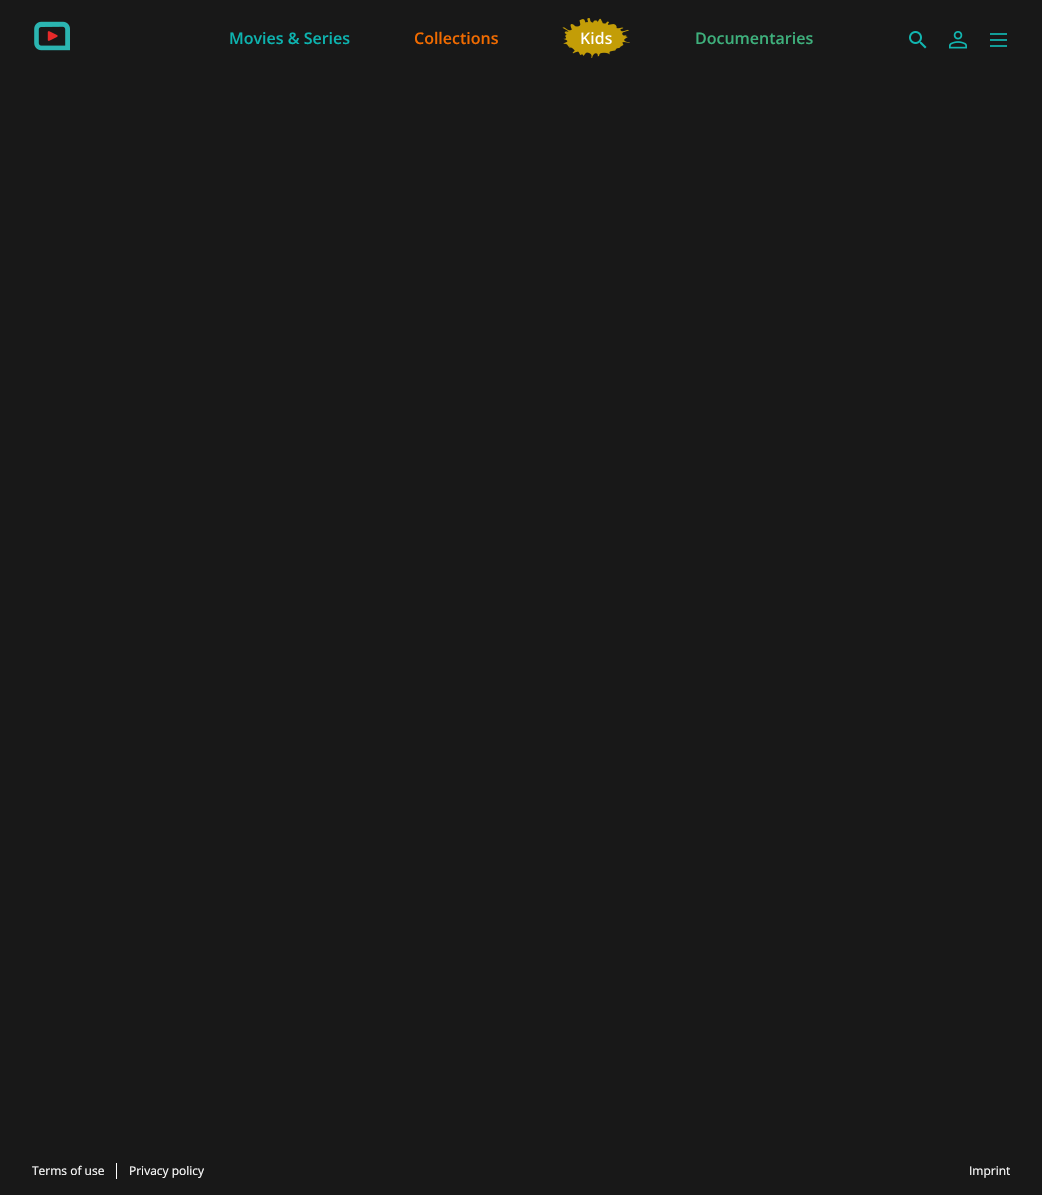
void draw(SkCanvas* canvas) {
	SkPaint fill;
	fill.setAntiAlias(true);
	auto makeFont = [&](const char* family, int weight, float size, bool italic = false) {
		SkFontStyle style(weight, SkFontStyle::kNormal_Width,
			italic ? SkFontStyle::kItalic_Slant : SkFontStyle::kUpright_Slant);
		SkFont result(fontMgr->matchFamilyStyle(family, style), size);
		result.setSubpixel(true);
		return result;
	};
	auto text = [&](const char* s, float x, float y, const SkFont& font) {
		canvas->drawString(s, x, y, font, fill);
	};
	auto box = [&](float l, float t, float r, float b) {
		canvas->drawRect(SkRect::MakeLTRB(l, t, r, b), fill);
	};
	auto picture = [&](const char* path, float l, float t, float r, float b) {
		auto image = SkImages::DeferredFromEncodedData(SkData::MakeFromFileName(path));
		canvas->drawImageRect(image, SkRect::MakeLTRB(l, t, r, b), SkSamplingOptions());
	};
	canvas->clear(0xFF181818);
	picture("image0.png", 34, 21, 70, 51);
	picture("image1.png", 562, 18, 630, 58);
	picture("image2.png", 909, 31, 927, 49);
	picture("image3.png", 949, 31, 967, 49);
	fill.setColor(0xFF129E99);
	box(990, 33, 1007, 35);
	box(990, 39, 1007, 41);
	box(990, 45, 1007, 47);
	fill.setColor(0xFFFFFFFF);
	box(116, 1163, 117, 1179);
	auto font1 = makeFont("Open Sans", 600, 16);
	fill.setColor(0xFF0DB3AF);
	text("Movies & Series", 229, 44, font1);
	fill.setColor(0xFFF16B00);
	text("Collections", 414, 44, font1);
	fill.setColor(0xFF3EB07C);
	text("Documentaries", 695, 44, font1);
	auto font2 = makeFont("Open Sans", 400, 12);
	fill.setColor(0xFFFFFFFF);
	text("Terms of use", 32, 1175, font2);
	text("Privacy policy", 129, 1175, font2);
	text("Imprint", 969, 1175, font2);
}
